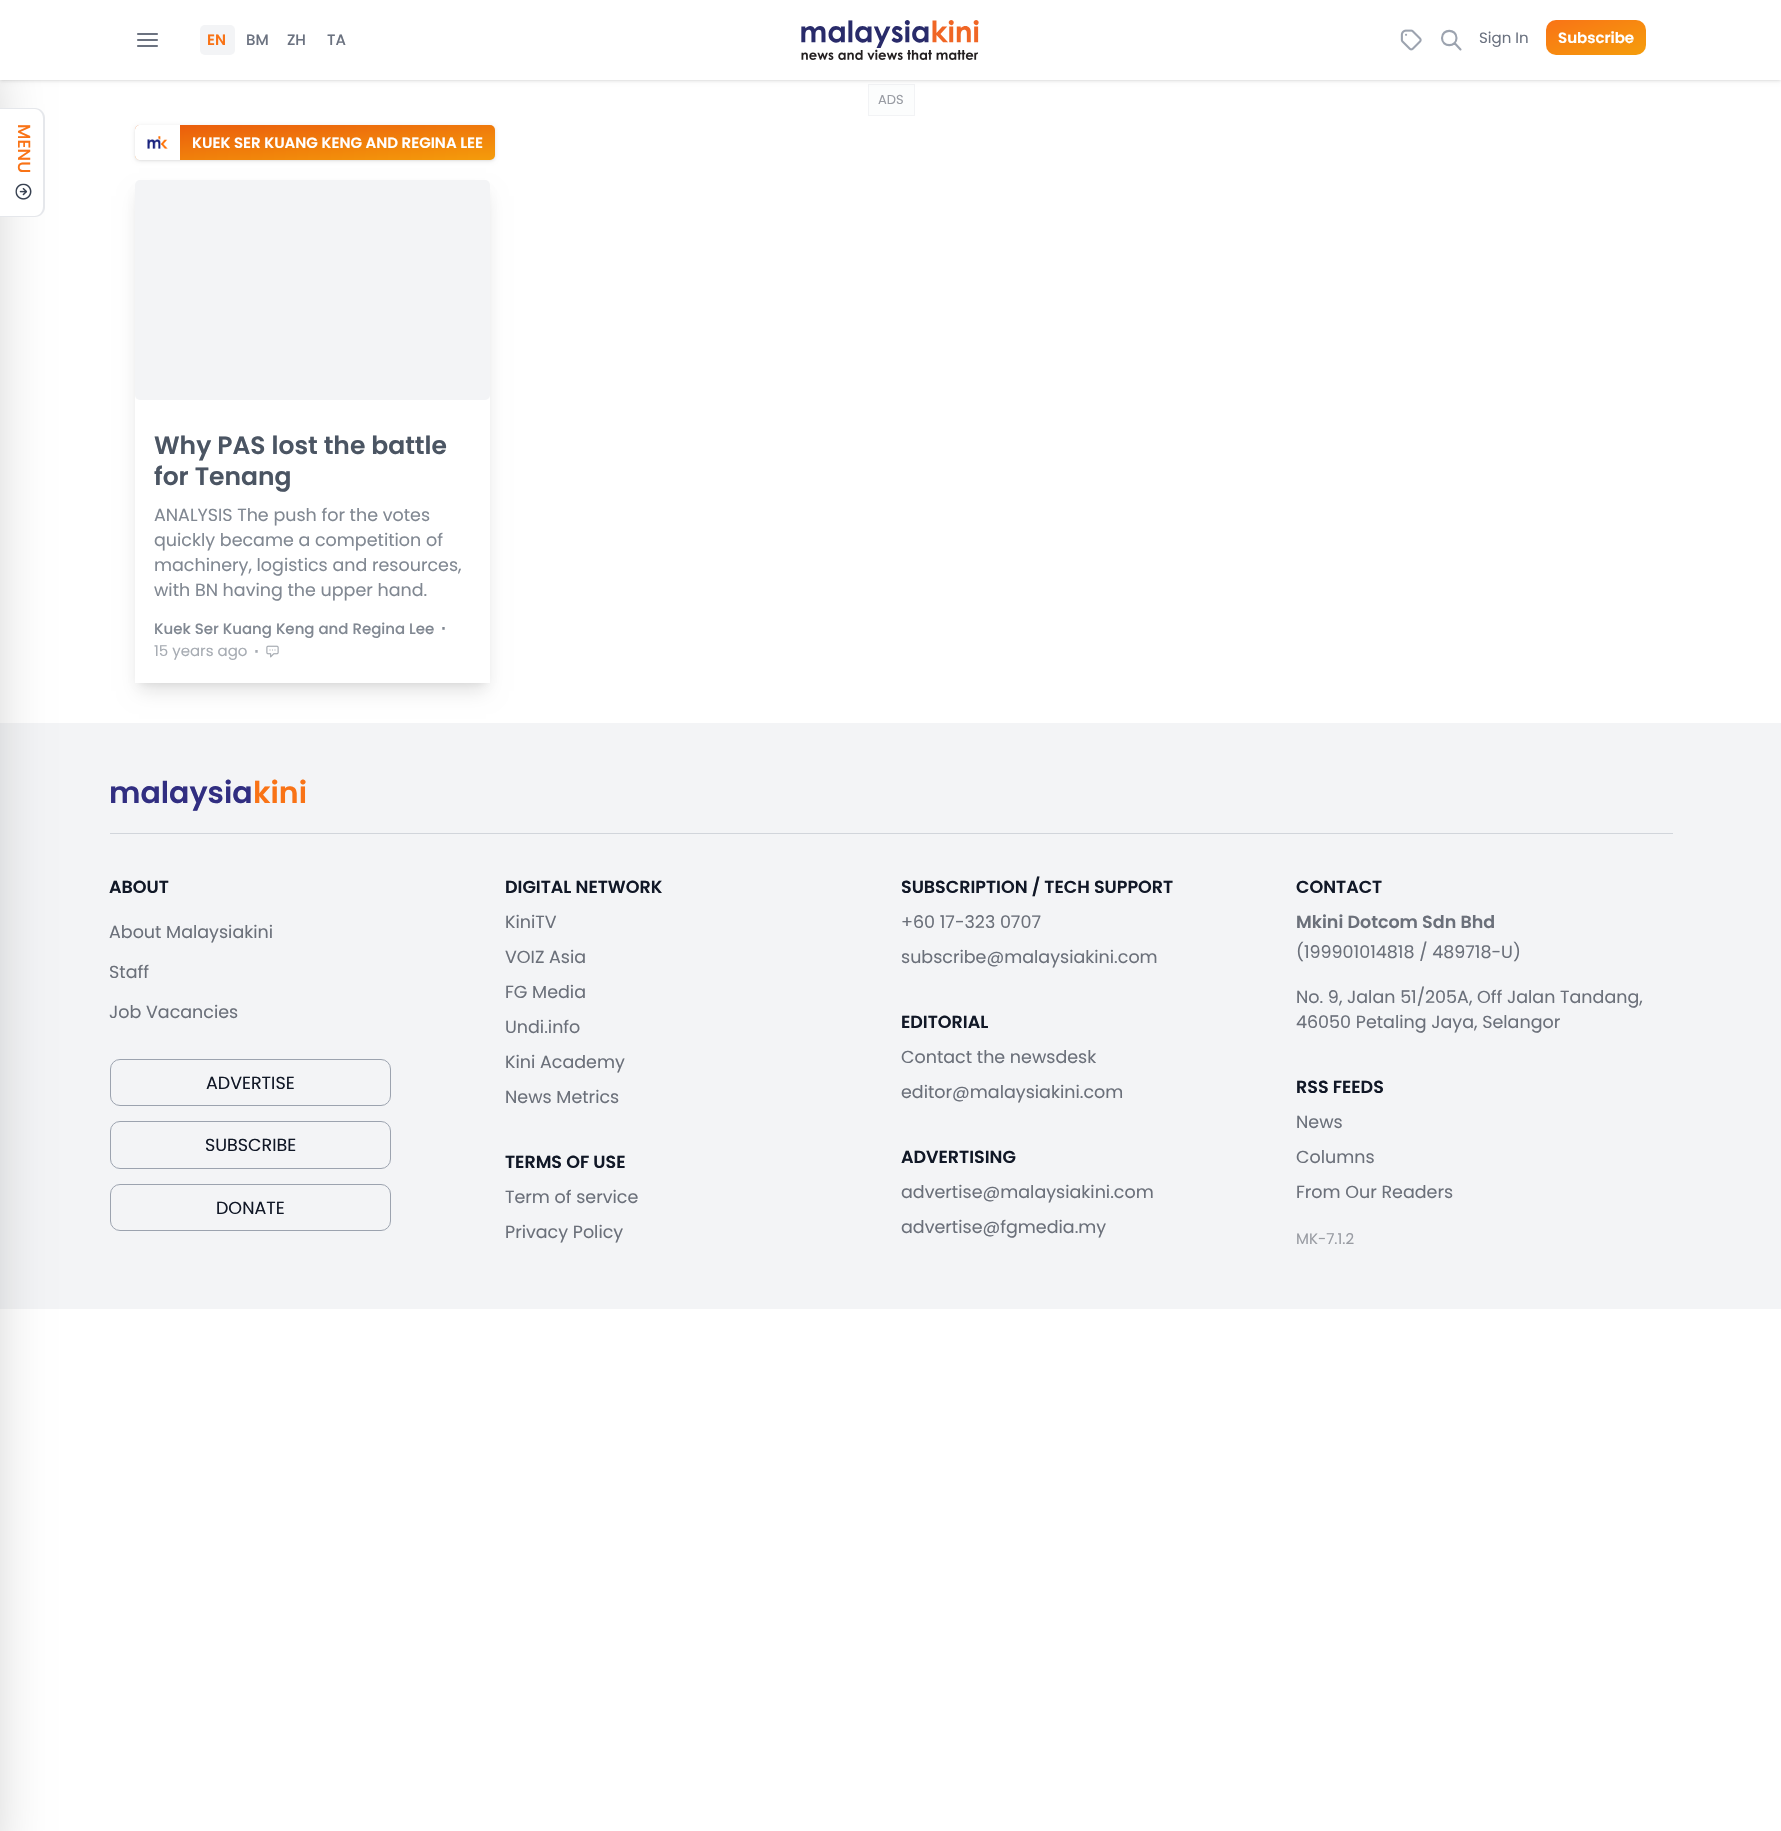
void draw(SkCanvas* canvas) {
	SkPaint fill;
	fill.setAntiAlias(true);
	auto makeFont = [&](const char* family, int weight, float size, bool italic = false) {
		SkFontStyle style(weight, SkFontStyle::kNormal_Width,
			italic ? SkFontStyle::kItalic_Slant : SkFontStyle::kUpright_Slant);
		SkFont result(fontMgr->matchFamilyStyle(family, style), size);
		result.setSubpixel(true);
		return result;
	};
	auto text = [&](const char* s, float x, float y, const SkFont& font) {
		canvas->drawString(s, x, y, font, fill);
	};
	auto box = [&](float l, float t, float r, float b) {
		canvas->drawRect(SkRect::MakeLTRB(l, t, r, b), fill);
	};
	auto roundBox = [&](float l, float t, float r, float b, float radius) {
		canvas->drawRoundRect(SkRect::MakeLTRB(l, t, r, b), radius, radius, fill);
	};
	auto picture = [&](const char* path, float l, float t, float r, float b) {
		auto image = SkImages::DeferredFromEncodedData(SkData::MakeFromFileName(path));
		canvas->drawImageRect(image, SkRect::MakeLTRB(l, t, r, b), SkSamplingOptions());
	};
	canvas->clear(0xFFFFFFFF);
	fill.setColor(0x1A000000);
	fill.setMaskFilter(SkMaskFilter::MakeBlur(kNormal_SkBlurStyle, 1));
	canvas->drawRect(SkRect::MakeLTRB(1, 3, 1780, 80), fill);
	fill.setMaskFilter(nullptr);
	fill.setColor(0xFFFCFDFD);
	canvas->drawRect(SkRect::MakeLTRB(868.5f, 84.5f, 914.5f, 115.5f), fill);
	fill.setStyle(SkPaint::kStroke_Style);
	fill.setStrokeWidth(1);
	fill.setColor(0xFFF2F3F5);
	canvas->drawRect(SkRect::MakeLTRB(868.5f, 84.5f, 914.5f, 115.5f), fill);
	fill.setStyle(SkPaint::kFill_Style);
	fill.setColor(0x1A000000);
	fill.setMaskFilter(SkMaskFilter::MakeBlur(kNormal_SkBlurStyle, 2));
	canvas->drawRect(SkRect::MakeLTRB(0, 1, 1781, 81), fill);
	fill.setMaskFilter(nullptr);
	fill.setColor(0xFFF3F4F6);
	box(0, 723, 1781, 1309);
	fill.setColor(0x40000000);
	fill.setMaskFilter(SkMaskFilter::MakeBlur(kNormal_SkBlurStyle, 31));
	canvas->drawRect(SkRect::MakeLTRB(-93, 66, -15, 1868), fill);
	fill.setMaskFilter(nullptr);
	fill.setColor(0xFFFFFFFF);
	box(0, 0, 1781, 80);
	fill.setStyle(SkPaint::kStroke_Style);
	fill.setStrokeWidth(2.1f);
	fill.setStrokeCap(SkPaint::kRound_Cap);
	fill.setStrokeJoin(SkPaint::kRound_Join);
	fill.setColor(0xFF6B7280);
	canvas->drawPath(SkPathBuilder().moveTo(138, 40).lineTo(157, 40).moveTo(138, 34).lineTo(157, 34).moveTo(138, 46).lineTo(157, 46).detach(), fill);
	fill.setStyle(SkPaint::kFill_Style);
	fill.setColor(0xFFF3F4F6);
	roundBox(200, 25, 235, 55, 5);
	picture("image0.png", 801, 20, 979, 60);
	picture("image1.png", 1400, 29, 1422, 51);
	fill.setStyle(SkPaint::kStroke_Style);
	fill.setColor(0xFF9CA3AF);
	canvas->drawPath(SkPathBuilder().moveTo(1460.5f, 49.5f).lineTo(1454.5f, 43).moveTo(1456.5f, 38).cubicTo(1456.5f, 47.5f, 1442, 47.5f, 1442, 38).cubicTo(1442, 28.5f, 1456.5f, 28.5f, 1456.5f, 38).close().detach(), fill);
	fill.setStyle(SkPaint::kFill_Style);
	{
		const SkColor colors[] = {0xFFF97316, 0xFFF59E0B};
		const float stops[] = {0, 1};
		const SkPoint ends[] = {{1585, 6.3f}, {1607, 69}};
		fill.setShader(SkGradientShader::MakeLinear(ends, colors, stops, 2, SkTileMode::kClamp));
		fill.setAlpha(255);
	}
	roundBox(1546, 20, 1646, 55, 10);
	fill.setShader(nullptr);
	fill.setColor(0xFFFFFFFF);
	canvas->drawPath(SkPathBuilder().moveTo(43, 118).lineTo(43, 207).cubicTo(43, 212, 39, 216, 35, 216).lineTo(0, 216).lineTo(0, 109).lineTo(35, 109).cubicTo(39, 109, 43, 113, 43, 118).close().detach(), fill);
	fill.setColor(0xFFE5E7EB);
	canvas->drawPath(SkPathBuilder(SkPathFillType::kEvenOdd).moveTo(45, 118).lineTo(45, 207).cubicTo(45, 213, 40, 217, 35, 217).lineTo(0, 217).lineTo(0, 108).lineTo(35, 108).cubicTo(40, 108, 45, 112, 45, 118).close().moveTo(43, 118).lineTo(43, 207).cubicTo(43, 212, 39, 216, 35, 216).lineTo(0, 216).lineTo(0, 109).lineTo(35, 109).cubicTo(39, 109, 43, 113, 43, 118).close().detach(), fill);
	picture("image2.png", 15, 183, 32, 200);
	fill.setColor(0x1A000000);
	fill.setMaskFilter(SkMaskFilter::MakeBlur(kNormal_SkBlurStyle, 1));
	canvas->drawRoundRect(SkRect::MakeLTRB(136, 128, 494, 160), 4, 4, fill);
	fill.setMaskFilter(nullptr);
	fill.setMaskFilter(SkMaskFilter::MakeBlur(kNormal_SkBlurStyle, 2));
	canvas->drawRoundRect(SkRect::MakeLTRB(135, 126, 495, 161), 5, 5, fill);
	fill.setMaskFilter(nullptr);
	{
		const SkColor colors[] = {0xFFEA580C, 0xFFF59E0B};
		const float stops[] = {0, 1};
		const SkPoint ends[] = {{312, 108}, {318, 177}};
		fill.setShader(SkGradientShader::MakeLinear(ends, colors, stops, 2, SkTileMode::kClamp));
		fill.setAlpha(255);
	}
	roundBox(135, 125, 495, 160, 5);
	fill.setShader(nullptr);
	fill.setColor(0xFFFFFFFF);
	canvas->drawPath(SkPathBuilder().moveTo(140, 125).lineTo(180, 125).lineTo(180, 160).lineTo(140, 160).cubicTo(137, 160, 135, 158, 135, 155).lineTo(135, 130).cubicTo(135, 127, 137, 125, 140, 125).close().detach(), fill);
	picture("image3.png", 147, 136, 168, 149);
	canvas->save();
	canvas->clipPath(SkPathBuilder(SkPathFillType::kEvenOdd).moveTo(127, 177).lineTo(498, 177).lineTo(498, 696).lineTo(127, 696).close().moveTo(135, 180).lineTo(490, 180).lineTo(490, 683).lineTo(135, 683).close().detach(), true);
	fill.setColor(0x1A000000);
	fill.setMaskFilter(SkMaskFilter::MakeBlur(kNormal_SkBlurStyle, 4));
	canvas->drawRect(SkRect::MakeLTRB(140, 190, 485, 683), fill);
	fill.setMaskFilter(nullptr);
	canvas->restore();
	canvas->save();
	canvas->clipPath(SkPathBuilder(SkPathFillType::kEvenOdd).moveTo(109, 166).lineTo(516, 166).lineTo(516, 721).lineTo(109, 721).close().moveTo(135, 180).lineTo(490, 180).lineTo(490, 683).lineTo(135, 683).close().detach(), true);
	fill.setMaskFilter(SkMaskFilter::MakeBlur(kNormal_SkBlurStyle, 9.5f));
	canvas->drawRect(SkRect::MakeLTRB(139, 196, 486, 691), fill);
	fill.setMaskFilter(nullptr);
	canvas->restore();
	fill.setColor(0xFFF3F4F6);
	roundBox(135, 180, 490, 400, 5);
	picture("image4.png", 266, 645, 279, 658);
	fill.setColor(0xFFD1D5DB);
	box(110, 833, 1673, 834);
	fill.setStyle(SkPaint::kStroke_Style);
	fill.setStrokeWidth(1);
	fill.setStrokeCap(SkPaint::kButt_Cap);
	fill.setStrokeJoin(SkPaint::kMiter_Join);
	fill.setColor(0xFF9CA3AF);
	canvas->drawRoundRect(SkRect::MakeLTRB(110.5f, 1059.5f, 390.5f, 1105.5f), 9.5f, 9.5f, fill);
	canvas->drawRoundRect(SkRect::MakeLTRB(110.5f, 1121.5f, 390.5f, 1168.5f), 9.5f, 9.5f, fill);
	canvas->drawRoundRect(SkRect::MakeLTRB(110.5f, 1184.5f, 390.5f, 1230.5f), 9.5f, 9.5f, fill);
	auto font1 = makeFont("Poppins", 600, 15);
	fill.setStyle(SkPaint::kFill_Style);
	fill.setColor(0xFFF97316);
	text("EN", 207, 45, font1);
	auto font2 = makeFont("Poppins", 500, 15);
	fill.setColor(0xFF6B7280);
	text("BM", 246, 45, font2);
	text("ZH", 287, 45, font2);
	text("TA", 327, 45, font2);
	auto font3 = makeFont("Poppins", 400, 15);
	text("Sign In", 1479, 43, font3);
	fill.setColor(0xFFFFFFFF);
	text("Subscribe", 1558, 43, font1);
	auto font4 = makeFont("Poppins", 500, 17.5f);
	fill.setColor(0xFFF97316);
	canvas->save();
	canvas->rotate(90, 18, 124);
	text("MENU", 18, 124, font4);
	canvas->restore();
	auto font5 = makeFont("Poppins", 400, 13);
	fill.setColor(0xFF999CA3);
	text("ADS", 878, 104, font5);
	fill.setColor(0xFFFFFFFF);
	text("KUEK SER KUANG KENG AND REGINA LEE", 192, 148, font1);
	auto font6 = makeFont("Poppins", 600, 25);
	fill.setColor(0xFF4B5563);
	text("Why PAS lost the battle", 154, 454, font6);
	text("for Tenang", 154, 485, font6);
	auto font7 = makeFont("Poppins", 400, 17.5f);
	fill.setColor(0xFF818892);
	text("ANALYSIS The push for the votes", 154, 521, font7);
	text("quickly became a competition of", 154, 546, font7);
	text("machinery, logistics and resources,", 154, 571, font7);
	text("with BN having the upper hand.", 154, 596, font7);
	text("Kuek Ser Kuang Keng and Regina Lee", 154, 634, font2);
	auto font8 = makeFont("DejaVu Sans", 400, 22);
	text("⋅", 440, 636, font8);
	fill.setColor(0xFFA7ACB3);
	text("15 years ago", 154, 656, font3);
	text("⋅", 253, 659, font8);
	auto font9 = makeFont("Poppins", 600, 30);
	fill.setColor(0xFF312E81);
	text("malaysia", 109, 803, font9);
	fill.setColor(0xFFF97316);
	text("kini", 253, 803, font9);
	auto font10 = makeFont("Poppins", 600, 17.5f);
	fill.setColor(0xFF111827);
	text("ABOUT", 109, 893, font10);
	fill.setColor(0xFF6B707A);
	text("About Malaysiakini", 109, 938, font7);
	text("Staff", 109, 978, font7);
	text("Job Vacancies", 109, 1018, font7);
	fill.setColor(0xFF111827);
	text("ADVERTISE", 206, 1089, font7);
	text("SUBSCRIBE", 205, 1151, font7);
	text("DONATE", 216, 1214, font7);
	text("DIGITAL NETWORK", 505, 893, font10);
	fill.setColor(0xFF6B707A);
	text("KiniTV", 505, 928, font7);
	text("VOIZ Asia", 505, 963, font7);
	text("FG Media", 505, 998, font7);
	text("Undi.info", 505, 1033, font7);
	text("Kini Academy", 505, 1068, font7);
	text("News Metrics", 505, 1103, font7);
	fill.setColor(0xFF111827);
	text("TERMS OF USE", 505, 1168, font10);
	fill.setColor(0xFF6B707A);
	text("Term of service", 505, 1203, font7);
	text("Privacy Policy", 505, 1238, font7);
	fill.setColor(0xFF111827);
	text("SUBSCRIPTION / TECH SUPPORT", 901, 893, font10);
	fill.setColor(0xFF6B707A);
	text("+60 17-323 0707", 901, 928, font7);
	text("subscribe@malaysiakini.com", 901, 963, font7);
	fill.setColor(0xFF111827);
	text("EDITORIAL", 901, 1028, font10);
	fill.setColor(0xFF6B707A);
	text("Contact the newsdesk", 901, 1063, font7);
	text("editor@malaysiakini.com", 901, 1098, font7);
	fill.setColor(0xFF111827);
	text("ADVERTISING", 901, 1163, font10);
	fill.setColor(0xFF6B707A);
	text("advertise@malaysiakini.com", 901, 1198, font7);
	text("advertise@fgmedia.my", 901, 1233, font7);
	fill.setColor(0xFF111827);
	text("CONTACT", 1296, 893, font10);
	fill.setColor(0xFF6B707A);
	text("Mkini Dotcom Sdn Bhd", 1296, 928, font10);
	text("(199901014818 / 489718-U)", 1296, 958, font7);
	text("No. 9, Jalan 51/205A, Off Jalan Tandang,", 1296, 1003, font7);
	text("46050 Petaling Jaya, Selangor", 1296, 1028, font7);
	fill.setColor(0xFF111827);
	text("RSS FEEDS", 1296, 1093, font10);
	fill.setColor(0xFF6B707A);
	text("News", 1296, 1128, font7);
	text("Columns", 1296, 1163, font7);
	text("From Our Readers", 1296, 1198, font7);
	fill.setColor(0xFF999CA3);
	text("MK-7.1.2", 1296, 1244, font3);
}
